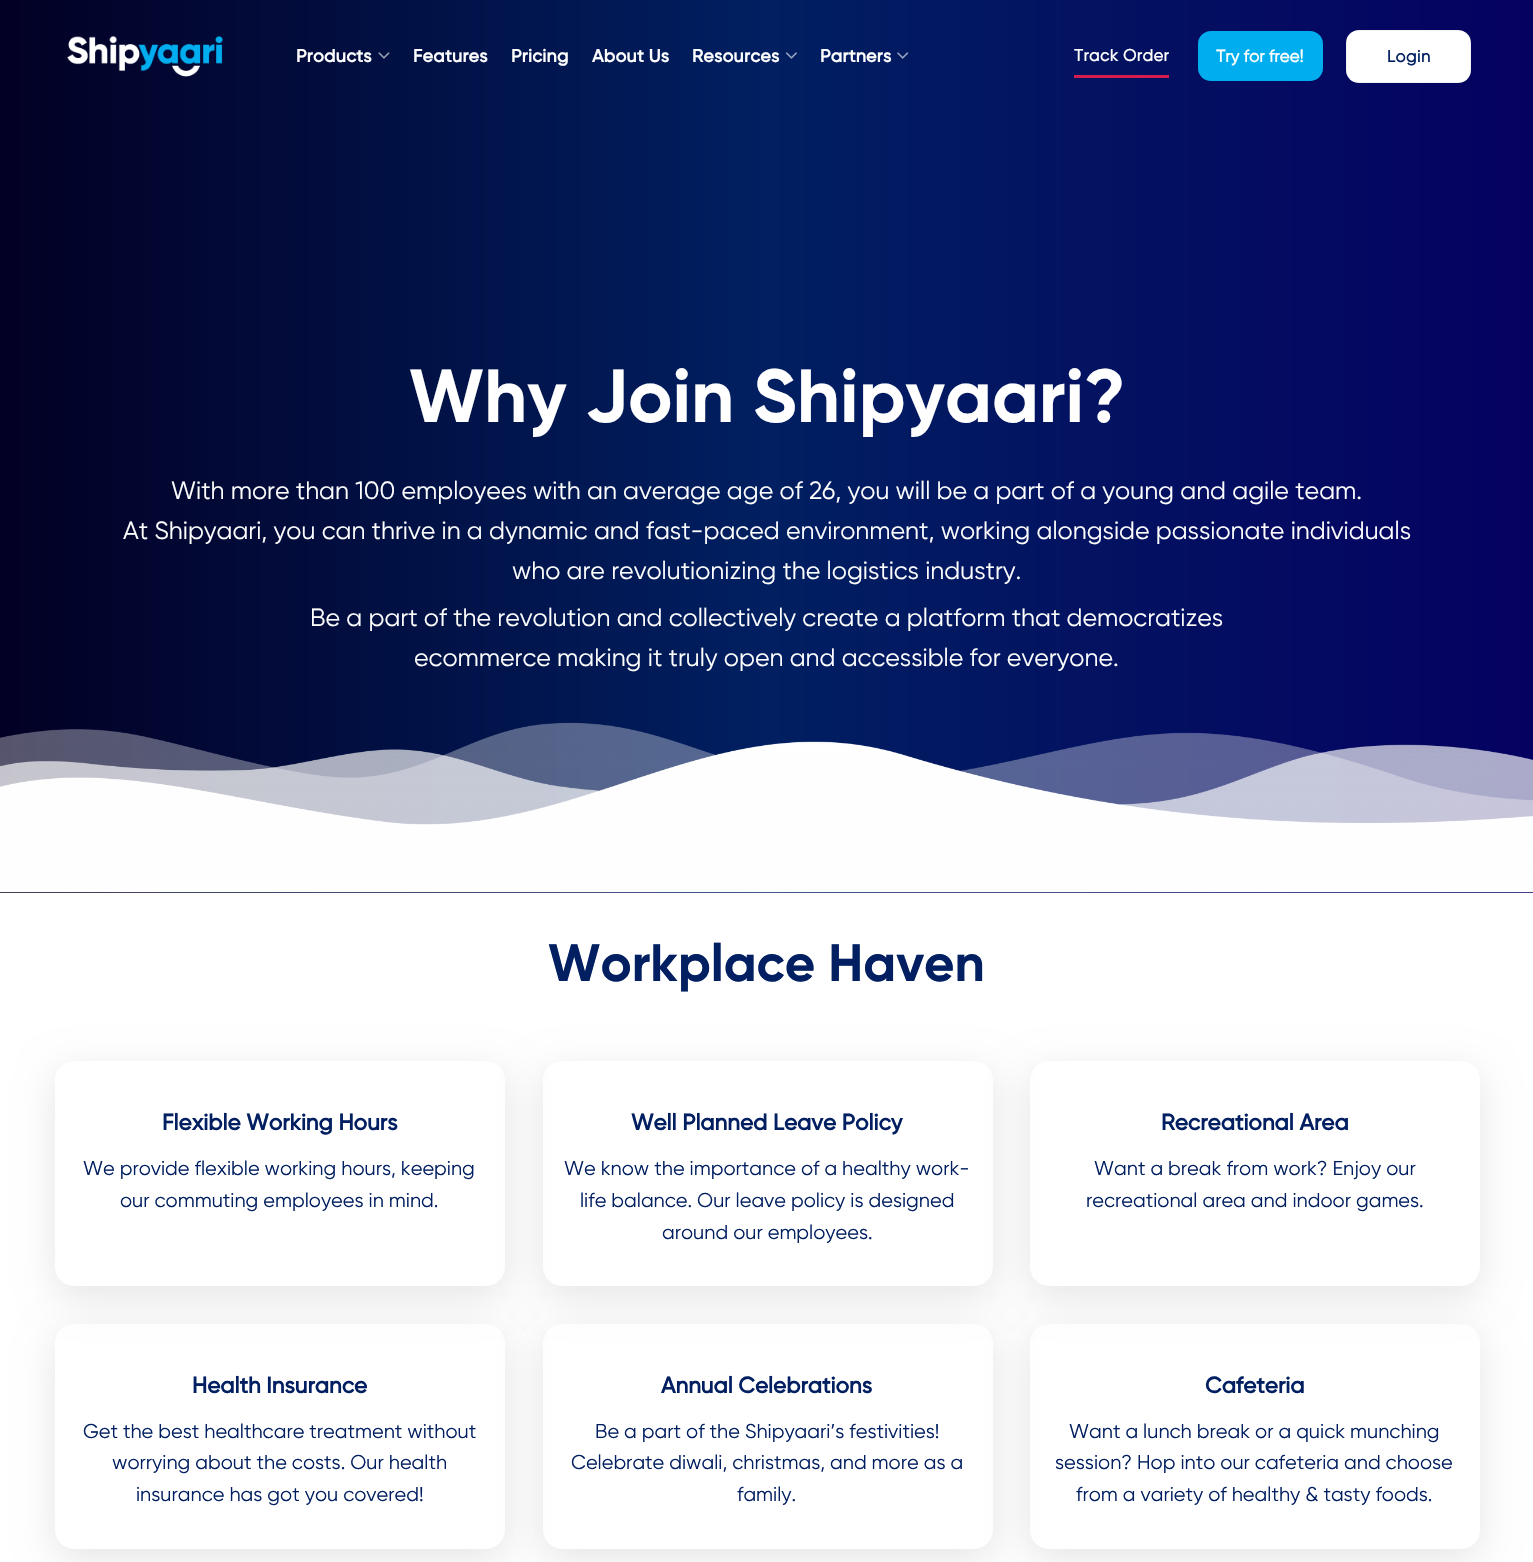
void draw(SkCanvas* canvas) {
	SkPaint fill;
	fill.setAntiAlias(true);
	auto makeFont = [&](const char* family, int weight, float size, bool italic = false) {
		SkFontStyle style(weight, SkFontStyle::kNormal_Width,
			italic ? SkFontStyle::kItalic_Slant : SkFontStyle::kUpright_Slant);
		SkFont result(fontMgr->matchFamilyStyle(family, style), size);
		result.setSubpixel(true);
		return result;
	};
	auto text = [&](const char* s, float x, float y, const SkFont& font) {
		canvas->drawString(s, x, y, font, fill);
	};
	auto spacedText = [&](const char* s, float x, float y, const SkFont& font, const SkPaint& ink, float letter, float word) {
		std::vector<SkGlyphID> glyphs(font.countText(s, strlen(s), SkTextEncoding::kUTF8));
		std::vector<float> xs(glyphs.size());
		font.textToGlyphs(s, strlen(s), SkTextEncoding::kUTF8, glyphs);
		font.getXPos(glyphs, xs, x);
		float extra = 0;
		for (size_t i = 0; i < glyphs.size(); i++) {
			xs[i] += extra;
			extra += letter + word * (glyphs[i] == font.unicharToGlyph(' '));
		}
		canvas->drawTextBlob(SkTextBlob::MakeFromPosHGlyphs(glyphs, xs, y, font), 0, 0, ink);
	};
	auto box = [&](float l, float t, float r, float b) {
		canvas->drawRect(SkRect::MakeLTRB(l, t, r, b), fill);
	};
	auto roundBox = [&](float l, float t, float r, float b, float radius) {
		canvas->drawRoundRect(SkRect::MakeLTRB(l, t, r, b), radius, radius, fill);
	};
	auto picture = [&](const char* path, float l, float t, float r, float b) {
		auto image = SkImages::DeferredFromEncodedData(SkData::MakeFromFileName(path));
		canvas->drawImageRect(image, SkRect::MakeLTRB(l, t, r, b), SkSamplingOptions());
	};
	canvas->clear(0xFFFFFFFF);
	{
		const SkColor colors[] = {0xFF020024, 0xFF011F61, 0xFF050161};
		const float stops[] = {0, 0.5f, 1};
		const SkPoint ends[] = {{0, 446}, {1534, 446}};
		fill.setShader(SkGradientShader::MakeLinear(ends, colors, stops, 3, SkTileMode::kClamp));
		fill.setAlpha(255);
	}
	box(0, 0, 1533, 893);
	picture("image0.png", 67, 36, 223, 77);
	picture("image1.png", 378, 52, 390, 59);
	picture("image2.png", 785, 52, 797, 59);
	picture("image3.png", 897, 52, 909, 59);
	fill.setShader(nullptr);
	fill.setColor(0xFFD61C4E);
	box(1074, 75, 1169, 78);
	fill.setColor(0xFF00AEEF);
	roundBox(1198, 31, 1323, 81, 13);
	fill.setColor(0xFFFFFFFF);
	roundBox(1346, 30, 1471, 83, 13);
	fill.setStyle(SkPaint::kStroke_Style);
	fill.setStrokeWidth(1);
	fill.setColor(0x0D000000);
	canvas->drawRect(SkRect::MakeLTRB(1346.5f, 30.5f, 1470.5f, 82.5f), fill);
	picture("image4.png", 0, 722, 1533, 893);
	canvas->save();
	canvas->clipPath(SkPathBuilder(SkPathFillType::kEvenOdd).moveTo(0, 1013).lineTo(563, 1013).lineTo(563, 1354).lineTo(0, 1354).close().moveTo(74, 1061).lineTo(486, 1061).cubicTo(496.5f, 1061, 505, 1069.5f, 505, 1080).lineTo(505, 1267).cubicTo(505, 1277.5f, 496.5f, 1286, 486, 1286).lineTo(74, 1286).cubicTo(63.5f, 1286, 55, 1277.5f, 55, 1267).lineTo(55, 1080).cubicTo(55, 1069.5f, 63.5f, 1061, 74, 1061).close().detach(), true);
	fill.setStyle(SkPaint::kFill_Style);
	fill.setColor(0x1A000000);
	fill.setMaskFilter(SkMaskFilter::MakeBlur(kNormal_SkBlurStyle, 19));
	canvas->drawRoundRect(SkRect::MakeLTRB(55, 1071, 505, 1296), 19, 19, fill);
	fill.setMaskFilter(nullptr);
	canvas->restore();
	canvas->save();
	canvas->clipPath(SkPathBuilder(SkPathFillType::kEvenOdd).moveTo(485, 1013).lineTo(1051, 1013).lineTo(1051, 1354).lineTo(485, 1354).close().moveTo(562, 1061).lineTo(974, 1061).cubicTo(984.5f, 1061, 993, 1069.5f, 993, 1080).lineTo(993, 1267).cubicTo(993, 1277.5f, 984.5f, 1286, 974, 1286).lineTo(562, 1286).cubicTo(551.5f, 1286, 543, 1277.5f, 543, 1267).lineTo(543, 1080).cubicTo(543, 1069.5f, 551.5f, 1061, 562, 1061).close().detach(), true);
	fill.setMaskFilter(SkMaskFilter::MakeBlur(kNormal_SkBlurStyle, 19));
	canvas->drawRoundRect(SkRect::MakeLTRB(543, 1071, 993, 1296), 19, 19, fill);
	fill.setMaskFilter(nullptr);
	canvas->restore();
	canvas->save();
	canvas->clipPath(SkPathBuilder(SkPathFillType::kEvenOdd).moveTo(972, 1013).lineTo(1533, 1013).lineTo(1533, 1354).lineTo(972, 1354).close().moveTo(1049, 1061).lineTo(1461, 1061).cubicTo(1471.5f, 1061, 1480, 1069.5f, 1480, 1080).lineTo(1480, 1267).cubicTo(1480, 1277.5f, 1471.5f, 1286, 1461, 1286).lineTo(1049, 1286).cubicTo(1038.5f, 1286, 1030, 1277.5f, 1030, 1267).lineTo(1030, 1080).cubicTo(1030, 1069.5f, 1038.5f, 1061, 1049, 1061).close().detach(), true);
	fill.setMaskFilter(SkMaskFilter::MakeBlur(kNormal_SkBlurStyle, 19));
	canvas->drawRoundRect(SkRect::MakeLTRB(1030, 1071, 1480, 1296), 19, 19, fill);
	fill.setMaskFilter(nullptr);
	canvas->restore();
	canvas->save();
	canvas->clipPath(SkPathBuilder(SkPathFillType::kEvenOdd).moveTo(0, 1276).lineTo(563, 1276).lineTo(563, 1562).lineTo(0, 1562).close().moveTo(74, 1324).lineTo(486, 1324).cubicTo(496.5f, 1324, 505, 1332.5f, 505, 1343).lineTo(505, 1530).cubicTo(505, 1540.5f, 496.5f, 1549, 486, 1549).lineTo(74, 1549).cubicTo(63.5f, 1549, 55, 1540.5f, 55, 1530).lineTo(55, 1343).cubicTo(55, 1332.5f, 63.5f, 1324, 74, 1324).close().detach(), true);
	fill.setMaskFilter(SkMaskFilter::MakeBlur(kNormal_SkBlurStyle, 19));
	canvas->drawRoundRect(SkRect::MakeLTRB(55, 1334, 505, 1559), 19, 19, fill);
	fill.setMaskFilter(nullptr);
	canvas->restore();
	canvas->save();
	canvas->clipPath(SkPathBuilder(SkPathFillType::kEvenOdd).moveTo(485, 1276).lineTo(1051, 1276).lineTo(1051, 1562).lineTo(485, 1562).close().moveTo(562, 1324).lineTo(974, 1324).cubicTo(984.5f, 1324, 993, 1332.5f, 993, 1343).lineTo(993, 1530).cubicTo(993, 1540.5f, 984.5f, 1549, 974, 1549).lineTo(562, 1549).cubicTo(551.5f, 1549, 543, 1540.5f, 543, 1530).lineTo(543, 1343).cubicTo(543, 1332.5f, 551.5f, 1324, 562, 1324).close().detach(), true);
	fill.setMaskFilter(SkMaskFilter::MakeBlur(kNormal_SkBlurStyle, 19));
	canvas->drawRoundRect(SkRect::MakeLTRB(543, 1334, 993, 1559), 19, 19, fill);
	fill.setMaskFilter(nullptr);
	canvas->restore();
	canvas->save();
	canvas->clipPath(SkPathBuilder(SkPathFillType::kEvenOdd).moveTo(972, 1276).lineTo(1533, 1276).lineTo(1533, 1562).lineTo(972, 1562).close().moveTo(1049, 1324).lineTo(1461, 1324).cubicTo(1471.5f, 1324, 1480, 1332.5f, 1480, 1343).lineTo(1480, 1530).cubicTo(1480, 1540.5f, 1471.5f, 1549, 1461, 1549).lineTo(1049, 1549).cubicTo(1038.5f, 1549, 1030, 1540.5f, 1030, 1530).lineTo(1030, 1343).cubicTo(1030, 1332.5f, 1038.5f, 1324, 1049, 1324).close().detach(), true);
	fill.setMaskFilter(SkMaskFilter::MakeBlur(kNormal_SkBlurStyle, 19));
	canvas->drawRoundRect(SkRect::MakeLTRB(1030, 1334, 1480, 1559), 19, 19, fill);
	fill.setMaskFilter(nullptr);
	canvas->restore();
	auto font1 = makeFont("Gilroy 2", 700, 18);
	fill.setColor(0xFFFFFFFF);
	spacedText("Products", 296, 62, font1, fill, 0.25f, 0);
	spacedText("Features", 413, 62, font1, fill, 0.25f, 0);
	spacedText("Pricing", 511, 62, font1, fill, 0.25f, 0);
	spacedText("About Us", 592, 62, font1, fill, 0.25f, 0);
	spacedText("Resources", 692, 62, font1, fill, 0.25f, 0);
	spacedText("Partners", 820, 62, font1, fill, 0.25f, 0);
	auto font2 = makeFont("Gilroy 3", 700, 16.5f);
	spacedText("Track Order", 1074, 61, font2, fill, 0.5f, 0);
	auto font3 = makeFont("Gilroy 3", 700, 17);
	text("Try for free!", 1216, 62, font3);
	fill.setColor(0xFF011F61);
	spacedText("Login", 1387, 62, font2, fill, 0.5f, 0);
	auto font4 = makeFont("Gilroy", 700, 75);
	fill.setColor(0xFFFFFFFF);
	text("Why Join Shipyaari?", 409, 422, font4);
	auto font5 = makeFont("Gilroy", 400, 25);
	text("With more than 100 employees with an average age of 26, you will be a part of a young and agile team.", 171, 499, font5);
	text("At Shipyaari, you can thrive in a dynamic and fast-paced environment, working alongside passionate individuals", 123, 539, font5);
	text("who are revolutionizing the logistics industry.", 512, 579, font5);
	text("Be a part of the revolution and collectively create a platform that democratizes", 310, 626, font5);
	text("ecommerce making it truly open and accessible for everyone.", 414, 666, font5);
	auto font6 = makeFont("Gilroy", 700, 52.5f);
	fill.setColor(0xFF011F61);
	text("Workplace Haven", 548, 981, font6);
	auto font7 = makeFont("Gilroy 2", 700, 22.5f);
	text("Flexible Working Hours", 162, 1130, font7);
	auto font8 = makeFont("Gilroy", 400, 20);
	text("We provide flexible working hours, keeping", 83, 1175, font8);
	text("our commuting employees in mind.", 120, 1207, font8);
	text("Well Planned Leave Policy", 631, 1130, font7);
	text("We know the importance of a healthy work-", 564, 1175, font8);
	text("life balance. Our leave policy is designed", 580, 1207, font8);
	text("around our employees.", 662, 1239, font8);
	text("Recreational Area", 1161, 1130, font7);
	text("Want a break from work? Enjoy our", 1094, 1175, font8);
	text("recreational area and indoor games.", 1086, 1207, font8);
	text("Health Insurance", 192, 1393, font7);
	text("Get the best healthcare treatment without", 83, 1438, font8);
	text("worrying about the costs. Our health", 112, 1469, font8);
	text("insurance has got you covered!", 136, 1501, font8);
	text("Annual Celebrations", 661, 1393, font7);
	text("Be a part of the Shipyaari’s festivities!", 595, 1438, font8);
	text("Celebrate diwali, christmas, and more as a", 571, 1469, font8);
	text("family.", 737, 1501, font8);
	text("Cafeteria", 1205, 1393, font7);
	text("Want a lunch break or a quick munching", 1069, 1438, font8);
	text("session? Hop into our cafeteria and choose", 1055, 1469, font8);
	text("from a variety of healthy & tasty foods.", 1076, 1501, font8);
}
